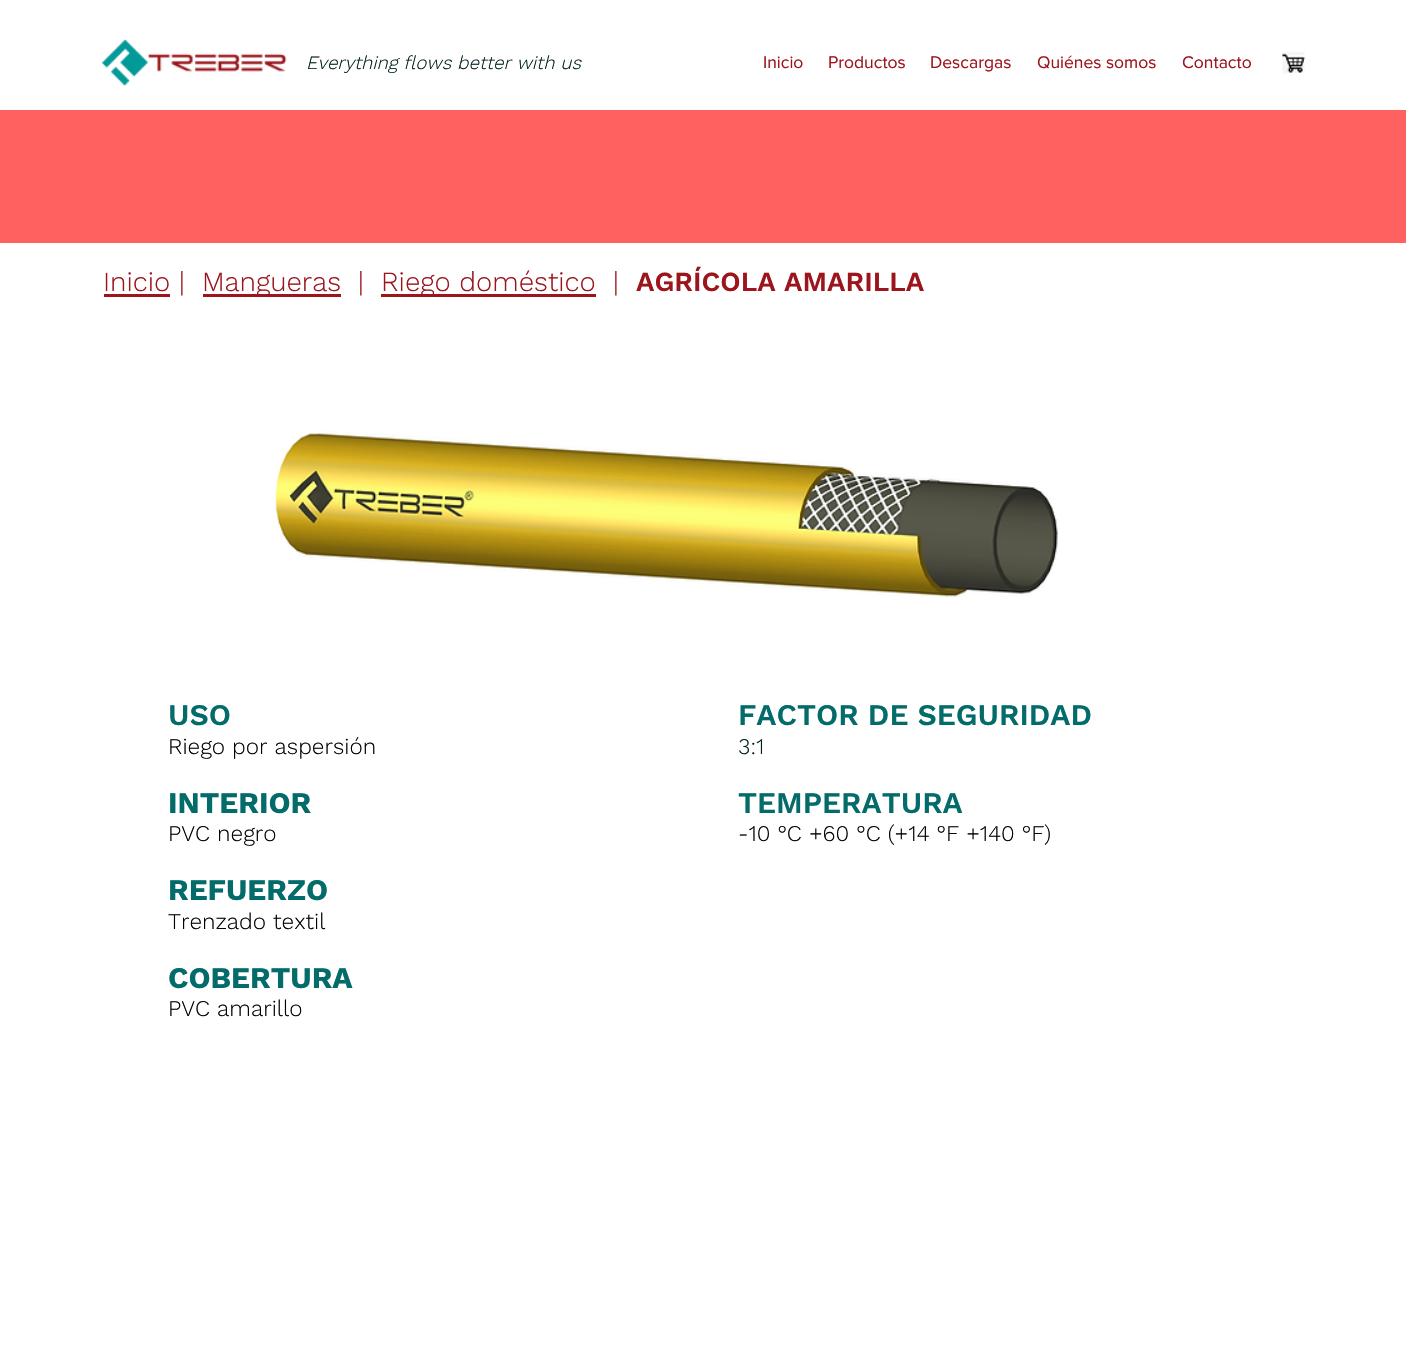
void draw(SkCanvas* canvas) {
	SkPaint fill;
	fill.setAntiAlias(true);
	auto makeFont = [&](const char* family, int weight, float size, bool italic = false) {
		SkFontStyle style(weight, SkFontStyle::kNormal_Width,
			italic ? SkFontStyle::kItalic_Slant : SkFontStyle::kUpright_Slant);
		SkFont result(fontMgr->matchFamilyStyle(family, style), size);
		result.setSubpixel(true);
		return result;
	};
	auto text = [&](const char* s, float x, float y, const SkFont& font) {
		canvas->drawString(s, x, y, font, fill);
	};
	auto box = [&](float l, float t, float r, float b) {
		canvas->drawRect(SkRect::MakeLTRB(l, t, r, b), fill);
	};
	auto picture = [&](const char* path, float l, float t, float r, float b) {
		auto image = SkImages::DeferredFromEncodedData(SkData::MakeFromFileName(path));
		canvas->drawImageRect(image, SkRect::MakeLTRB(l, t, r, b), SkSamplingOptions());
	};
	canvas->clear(0xFFFFFFFF);
	picture("image0.png", 101, 39, 287, 87);
	picture("image1.png", 1282, 51, 1306, 74);
	fill.setColor(0xFFFF6161);
	box(0, 110, 1406, 243);
	fill.setColor(0xFF9C141C);
	box(104, 294, 170, 297);
	box(203, 294, 341, 297);
	box(381, 294, 596, 297);
	picture("image2.png", 275, 431, 1058, 597);
	auto font1 = makeFont("Work Sans", 300, 18.75f, true);
	fill.setColor(0xFF011F1F);
	text("Everything flows better with us", 306, 69, font1);
	auto font2 = makeFont("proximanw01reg", 400, 17.5f);
	fill.setColor(0xFF9C141C);
	text("Inicio", 763, 68, font2);
	text("Productos", 828, 68, font2);
	text("Descargas", 930, 68, font2);
	text("Quiénes somos", 1037, 68, font2);
	text("Contacto", 1182, 68, font2);
	auto font3 = makeFont("Work Sans", 300, 27.5f);
	text("Inicio |", 103, 291, font3);
	text("Mangueras", 202, 291, font3);
	text("|", 358, 291, font3);
	text("Riego doméstico", 381, 291, font3);
	text("|", 613, 291, font3);
	auto font4 = makeFont("Work Sans", 600, 27.5f);
	text("AGRÍCOLA AMARILLA", 636, 291, font4);
	auto font5 = makeFont("Work Sans", 600, 30);
	fill.setColor(0xFF036B6A);
	text("USO", 168, 725, font5);
	auto font6 = makeFont("Work Sans", 300, 22.5f);
	fill.setColor(0xFF000404);
	text("Riego por aspersión", 168, 754, font6);
	auto font7 = makeFont("Work Sans", 700, 30);
	fill.setColor(0xFF036B6A);
	text("INTERIOR", 168, 813, font7);
	fill.setColor(0xFF000404);
	text("PVC negro", 168, 841, font6);
	fill.setColor(0xFF036B6A);
	text("REFUERZO", 168, 900, font7);
	fill.setColor(0xFF000404);
	text("Trenzado textil", 168, 929, font6);
	fill.setColor(0xFF036B6A);
	text("COBERTURA", 168, 988, font7);
	fill.setColor(0xFF000404);
	text("PVC amarillo", 168, 1016, font6);
	fill.setColor(0xFF036B6A);
	text("FACTOR DE SEGURIDAD", 738, 725, font5);
	fill.setColor(0xFF011F1F);
	text("3:1", 738, 754, font6);
	fill.setColor(0xFF036B6A);
	text("TEMPERATURA", 738, 813, font5);
	fill.setColor(0xFF000404);
	text("-10 °C +60 °C (+14 °F +140 °F)", 738, 841, font6);
}
